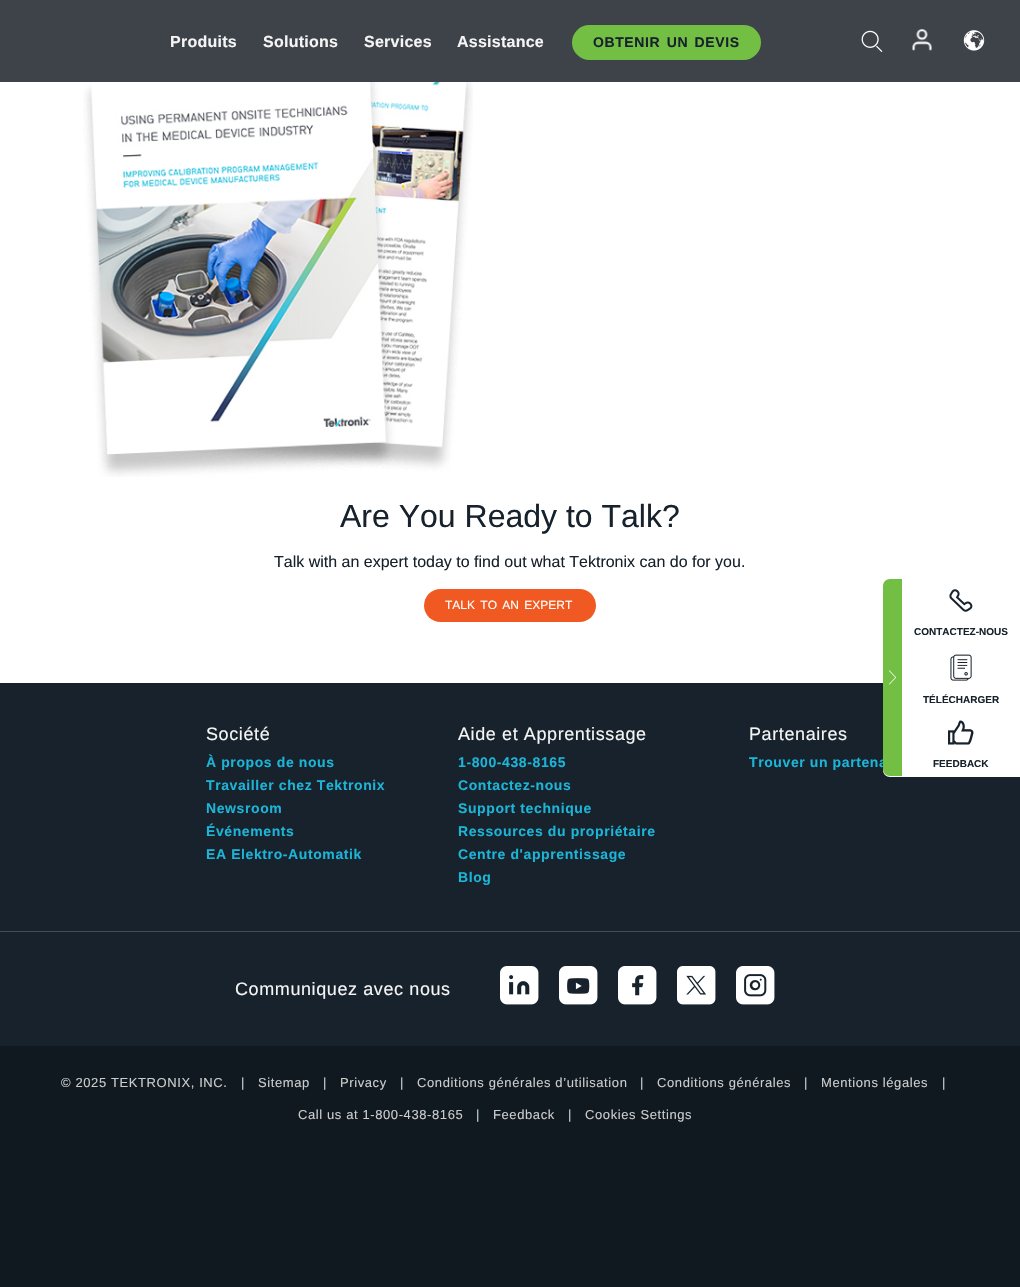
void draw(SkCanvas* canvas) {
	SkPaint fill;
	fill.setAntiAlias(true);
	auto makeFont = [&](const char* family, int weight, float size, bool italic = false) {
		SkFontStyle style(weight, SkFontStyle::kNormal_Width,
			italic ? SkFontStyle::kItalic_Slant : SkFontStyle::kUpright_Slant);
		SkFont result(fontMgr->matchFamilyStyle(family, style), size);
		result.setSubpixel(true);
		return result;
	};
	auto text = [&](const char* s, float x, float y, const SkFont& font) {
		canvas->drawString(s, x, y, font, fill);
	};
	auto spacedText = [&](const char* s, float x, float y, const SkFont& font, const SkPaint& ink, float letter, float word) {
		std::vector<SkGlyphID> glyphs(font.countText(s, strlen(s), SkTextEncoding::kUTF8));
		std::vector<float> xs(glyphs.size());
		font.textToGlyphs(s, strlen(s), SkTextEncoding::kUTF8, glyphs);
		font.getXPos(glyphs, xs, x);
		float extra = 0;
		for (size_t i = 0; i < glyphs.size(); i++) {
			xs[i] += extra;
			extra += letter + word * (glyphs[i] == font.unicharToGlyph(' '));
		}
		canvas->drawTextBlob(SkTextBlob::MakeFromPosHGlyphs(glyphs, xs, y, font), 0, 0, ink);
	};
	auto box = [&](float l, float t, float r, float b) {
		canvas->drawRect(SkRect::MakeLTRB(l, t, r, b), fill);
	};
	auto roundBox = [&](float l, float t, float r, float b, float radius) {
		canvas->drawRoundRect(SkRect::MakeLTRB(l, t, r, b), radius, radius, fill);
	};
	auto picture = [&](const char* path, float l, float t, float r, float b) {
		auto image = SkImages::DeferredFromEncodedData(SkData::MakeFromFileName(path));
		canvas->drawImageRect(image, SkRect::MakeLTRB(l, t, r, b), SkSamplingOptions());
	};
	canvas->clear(0xFFFFFFFF);
	fill.setColor(0xFF3E434A);
	box(0, 0, 1020, 82);
	fill.setColor(0xFF73BF44);
	roundBox(572, 25, 761, 60, 17.5f);
	picture("image0.png", 861, 30, 883, 52);
	picture("image1.png", 912, 29, 932, 51);
	picture("image2.png", 963, 30, 985, 51);
	picture("image3.png", 83, 82, 473, 477);
	fill.setColor(0xFFF05A22);
	roundBox(424, 589, 596, 622, 16.5f);
	fill.setColor(0xFF17222C);
	box(0, 683, 1020, 1046);
	fill.setColor(0xFF454E56);
	box(0, 931, 1020, 932);
	picture("image8.png", 500, 966, 539, 1005);
	picture("image9.png", 559, 966, 598, 1005);
	picture("image10.png", 618, 966, 657, 1005);
	picture("image11.png", 677, 966, 716, 1005);
	picture("image12.png", 736, 966, 775, 1005);
	fill.setColor(0xFF101920);
	box(0, 1046, 1020, 1287);
	auto font1 = makeFont("Liberation Sans", 700, 16);
	fill.setColor(0xFFF5F5F5);
	spacedText("Produits", 170, 47, font1, fill, 0.25f, 0);
	spacedText("Solutions", 263, 47, font1, fill, 0.25f, 0);
	spacedText("Services", 364, 47, font1, fill, 0.25f, 0);
	spacedText("Assistance", 457, 47, font1, fill, 0.25f, 0);
	auto font2 = makeFont("Liberation Sans", 700, 14);
	fill.setColor(0xFF17222C);
	spacedText("OBTENIR UN DEVIS", 593, 47, font2, fill, 0.6f, 2);
	auto font3 = makeFont("Liberation Sans", 400, 32);
	text("Are You Ready to Talk?", 340, 527, font3);
	auto font4 = makeFont("Liberation Sans", 400, 16);
	text("Talk with an expert today to find out what Tektronix can do for you.", 274, 567, font4);
	auto font5 = makeFont("Liberation Sans", 400, 12);
	fill.setColor(0xFFFFFFFF);
	spacedText("TALK TO AN EXPERT", 445, 609, font5, fill, 0, 2);
	auto font6 = makeFont("Liberation Sans", 400, 18);
	fill.setColor(0xFFF5F5F5);
	spacedText("Société", 206, 740, font6, fill, 0.6f, 0);
	fill.setColor(0xFF1CB5D8);
	spacedText("À propos de nous", 206, 767, font2, fill, 0.6f, 0);
	spacedText("Travailler chez Tektronix", 206, 790, font2, fill, 0.6f, 0);
	spacedText("Newsroom", 206, 813, font2, fill, 0.6f, 0);
	spacedText("Événements", 206, 836, font2, fill, 0.6f, 0);
	spacedText("EA Elektro-Automatik", 206, 859, font2, fill, 0.6f, 0);
	fill.setColor(0xFFF5F5F5);
	spacedText("Aide et Apprentissage", 458, 740, font6, fill, 0.6f, 0);
	fill.setColor(0xFF1CB5D8);
	spacedText("1-800-438-8165", 458, 767, font2, fill, 0.6f, 0);
	spacedText("Contactez-nous", 458, 790, font2, fill, 0.6f, 0);
	spacedText("Support technique", 458, 813, font2, fill, 0.6f, 0);
	spacedText("Ressources du propriétaire", 458, 836, font2, fill, 0.6f, 0);
	spacedText("Centre d'apprentissage", 458, 859, font2, fill, 0.6f, 0);
	spacedText("Blog", 458, 882, font2, fill, 0.6f, 0);
	fill.setColor(0xFFF5F5F5);
	spacedText("Partenaires", 749, 740, font6, fill, 0.6f, 0);
	fill.setColor(0xFF1CB5D8);
	spacedText("Trouver un partena", 749, 767, font2, fill, 0.6f, 0);
	fill.setColor(0xFFFFFFFF);
	canvas->drawPath(SkPathBuilder().moveTo(890, 579).lineTo(1020, 579).lineTo(1020, 777).lineTo(890, 777).cubicTo(886, 777, 883, 774, 883, 770).lineTo(883, 586).cubicTo(883, 582, 886, 579, 890, 579).close().detach(), fill);
	fill.setColor(0xFF73BF44);
	canvas->drawPath(SkPathBuilder().moveTo(890, 579).lineTo(902, 579).lineTo(902, 776).lineTo(890, 776).cubicTo(886, 776, 883, 773, 883, 769).lineTo(883, 586).cubicTo(883, 582, 886, 579, 890, 579).close().detach(), fill);
	picture("image4.png", 889, 670, 896, 685);
	auto font7 = makeFont("Liberation Sans", 700, 10);
	fill.setColor(0xFF17222C);
	text("FEEDBACK", 933, 767, font7);
	picture("image7.png", 948, 720, 974, 745);
	text("TÉLÉCHARGER", 923, 703, font7);
	picture("image6.png", 950, 654, 972, 681);
	text("CONTACTEZ-NOUS", 914, 635, font7);
	picture("image5.png", 949, 589, 973, 612);
	fill.setColor(0xFFF5F5F5);
	spacedText("Communiquez avec nous", 235, 995, font6, fill, 0.6f, 0);
	auto font8 = makeFont("Liberation Sans", 400, 13);
	fill.setColor(0xFFCCCCCC);
	spacedText("© 2025 TEKTRONIX, INC.", 61, 1087, font8, fill, 0.6f, 0);
	spacedText("|", 241, 1087, font8, fill, 0.6f, 0);
	spacedText("Sitemap", 258, 1087, font8, fill, 0.6f, 0);
	spacedText("|", 323, 1087, font8, fill, 0.6f, 0);
	spacedText("Privacy", 340, 1087, font8, fill, 0.6f, 0);
	spacedText("|", 400, 1087, font8, fill, 0.6f, 0);
	spacedText("Conditions générales d’utilisation", 417, 1087, font8, fill, 0.6f, 0);
	spacedText("|", 640, 1087, font8, fill, 0.6f, 0);
	spacedText("Conditions générales", 657, 1087, font8, fill, 0.6f, 0);
	spacedText("|", 804, 1087, font8, fill, 0.6f, 0);
	spacedText("Mentions légales", 821, 1087, font8, fill, 0.6f, 0);
	spacedText("|", 942, 1087, font8, fill, 0.6f, 0);
	spacedText("Call us at 1-800-438-8165", 298, 1119, font8, fill, 0.6f, 0);
	spacedText("|", 476, 1119, font8, fill, 0.6f, 0);
	spacedText("Feedback", 493, 1119, font8, fill, 0.6f, 0);
	spacedText("|", 568, 1119, font8, fill, 0.6f, 0);
	spacedText("Cookies Settings", 585, 1119, font8, fill, 0.6f, 0);
}
